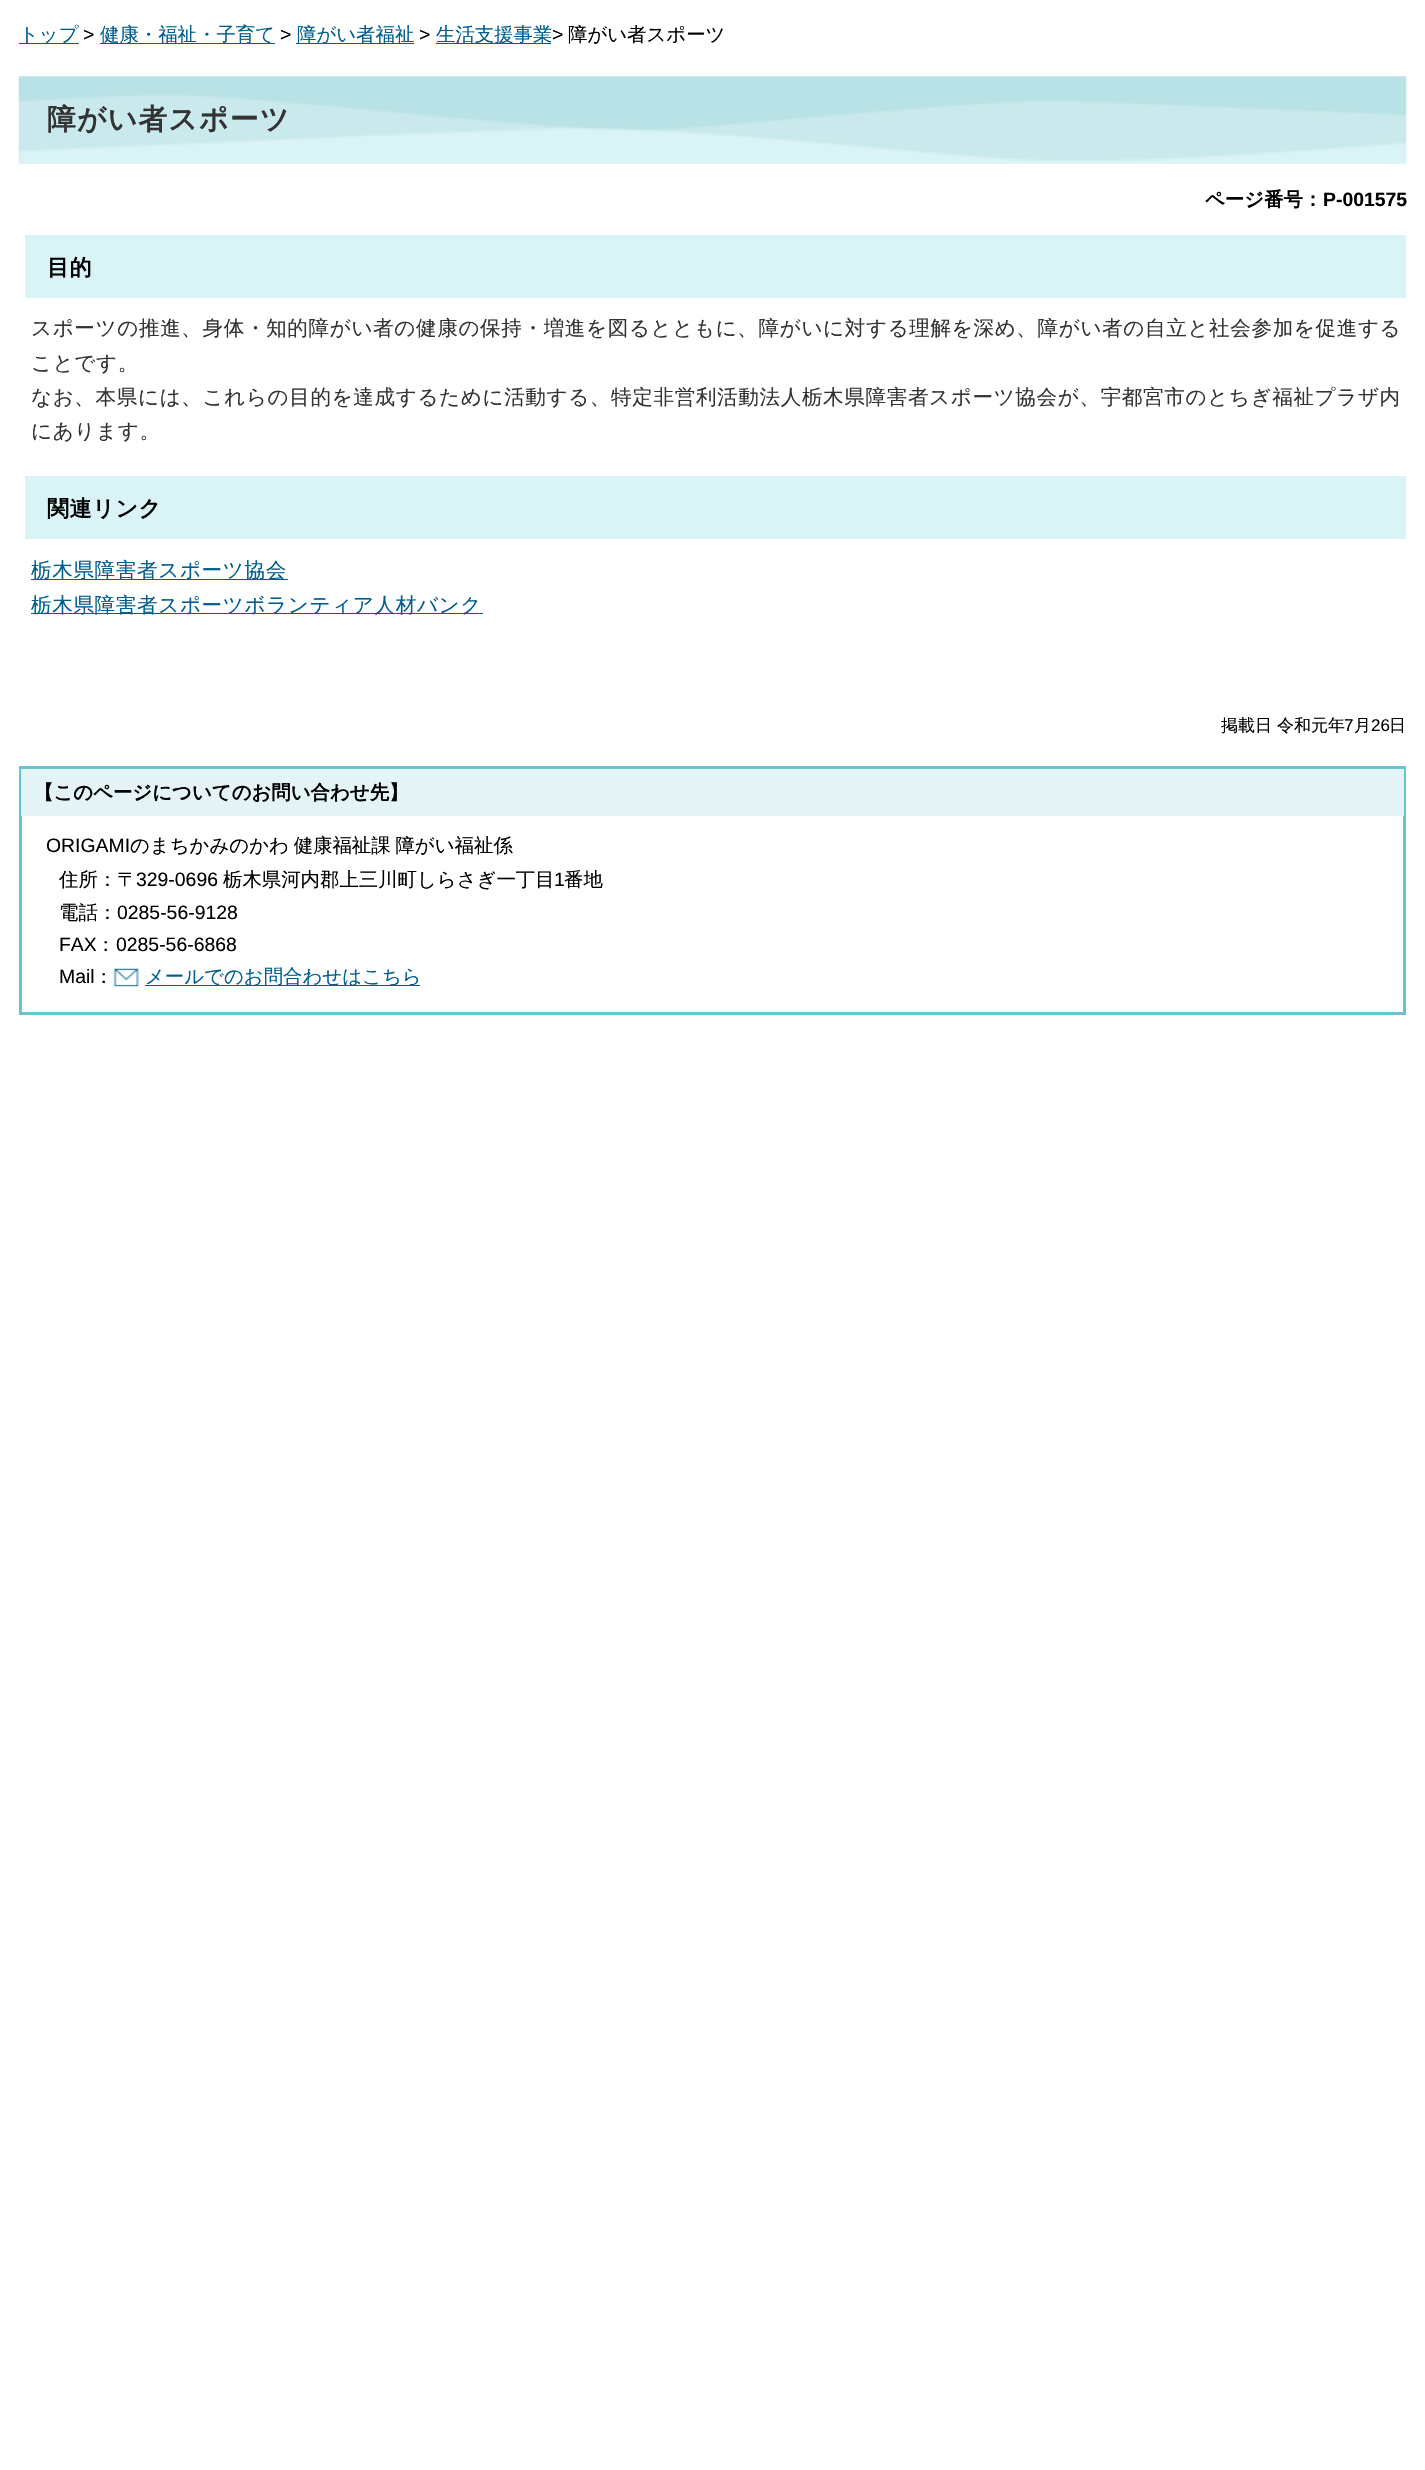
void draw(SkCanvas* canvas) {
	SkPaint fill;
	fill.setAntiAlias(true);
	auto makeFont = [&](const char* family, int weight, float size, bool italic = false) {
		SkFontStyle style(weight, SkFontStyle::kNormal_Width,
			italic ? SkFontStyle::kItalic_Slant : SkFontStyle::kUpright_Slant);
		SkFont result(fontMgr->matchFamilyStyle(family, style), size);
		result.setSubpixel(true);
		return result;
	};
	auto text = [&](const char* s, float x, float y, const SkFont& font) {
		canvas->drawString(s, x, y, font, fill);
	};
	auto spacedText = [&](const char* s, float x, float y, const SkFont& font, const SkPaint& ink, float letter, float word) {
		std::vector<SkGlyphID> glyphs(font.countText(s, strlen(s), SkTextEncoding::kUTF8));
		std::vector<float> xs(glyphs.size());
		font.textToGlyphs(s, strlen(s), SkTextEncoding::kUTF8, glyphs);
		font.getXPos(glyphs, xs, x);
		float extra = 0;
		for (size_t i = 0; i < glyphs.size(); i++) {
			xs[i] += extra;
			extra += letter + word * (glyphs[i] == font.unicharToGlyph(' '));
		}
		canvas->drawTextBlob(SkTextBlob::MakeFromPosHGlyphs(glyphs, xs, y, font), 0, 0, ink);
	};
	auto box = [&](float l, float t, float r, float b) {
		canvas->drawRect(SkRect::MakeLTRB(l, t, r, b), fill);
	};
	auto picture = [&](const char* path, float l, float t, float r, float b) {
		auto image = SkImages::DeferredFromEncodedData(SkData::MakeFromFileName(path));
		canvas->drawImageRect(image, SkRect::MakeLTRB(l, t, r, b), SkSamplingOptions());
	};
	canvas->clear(0xFFFFFFFF);
	fill.setColor(0xFF005D8C);
	box(19, 43, 79, 44);
	box(100, 43, 275, 44);
	box(296, 43, 414, 44);
	box(436, 43, 551, 44);
	picture("image0.png", 18, 76, 1407, 164);
	fill.setColor(0xFFD9F3F6);
	box(25, 235, 1406, 298);
	box(25, 476, 1406, 539);
	fill.setColor(0xFF005D8C);
	box(31, 579, 288, 580);
	box(31, 613, 483, 614);
	fill.setStyle(SkPaint::kStroke_Style);
	fill.setStrokeWidth(3);
	fill.setColor(0xFF66C4CC);
	canvas->drawRect(SkRect::MakeLTRB(20.5f, 767.5f, 1404.5f, 1013.5f), fill);
	fill.setStyle(SkPaint::kFill_Style);
	fill.setColor(0xFFE4F3F5);
	box(21, 769, 1404, 816);
	picture("image1.png", 113, 968, 139, 987);
	fill.setColor(0xFF005D8C);
	box(145, 985, 420, 986);
	auto font1 = makeFont("WenQuanYi Zen Hei", 500, 19.4f);
	text("トップ", 19, 41, font1);
	auto font2 = makeFont("Liberation Sans", 400, 19.4f);
	fill.setColor(0xFF000000);
	text(">", 83, 41, font2);
	fill.setColor(0xFF005D8C);
	text("健康・福祉・子育て", 100, 41, font1);
	fill.setColor(0xFF000000);
	text(">", 280, 41, font2);
	fill.setColor(0xFF005D8C);
	text("障がい者福祉", 297, 41, font1);
	fill.setColor(0xFF000000);
	text(">", 419, 41, font2);
	fill.setColor(0xFF005D8C);
	text("生活支援事業", 436, 41, font1);
	fill.setColor(0xFF000000);
	text(">", 552, 41, font2);
	text("障がい者スポーツ", 568, 41, font1);
	auto font3 = makeFont("WenQuanYi Zen Hei", 700, 28.75f);
	fill.setColor(0xFF333333);
	spacedText("障がい者スポーツ", 47, 129, font3, fill, 1.25f, 0);
	auto font4 = makeFont("WenQuanYi Zen Hei", 700, 19.4f);
	fill.setColor(0xFF000000);
	text("ページ番号：", 1205, 206, font4);
	auto font5 = makeFont("Liberation Sans", 700, 19.4f);
	text("P-001575", 1323, 206, font5);
	auto font6 = makeFont("WenQuanYi Zen Hei", 700, 22);
	spacedText("目的", 47, 275, font6, fill, 0.62f, 0);
	auto font7 = makeFont("WenQuanYi Zen Hei", 500, 20.58f);
	fill.setColor(0xFF333333);
	spacedText("スポーツの推進、身体・知的障がい者の健康の保持・増進を図るとともに、障がいに対する理解を深め、障がい者の自立と社会参加を促進する", 31, 335, font7, fill, 0.62f, 0);
	spacedText("ことです。", 31, 370, font7, fill, 0.62f, 0);
	spacedText("なお、本県には、これらの目的を達成するために活動する、特定非営利活動法人栃木県障害者スポーツ協会が、宇都宮市のとちぎ福祉プラザ内", 31, 404, font7, fill, 0.62f, 0);
	spacedText("にあります。", 31, 438, font7, fill, 0.62f, 0);
	fill.setColor(0xFF000000);
	spacedText("関連リンク", 47, 516, font6, fill, 0.62f, 0);
	fill.setColor(0xFF005D8C);
	spacedText("栃木県障害者スポーツ協会", 31, 577, font7, fill, 0.62f, 0);
	spacedText("栃木県障害者スポーツボランティア人材バンク", 31, 612, font7, fill, 0.62f, 0);
	auto font8 = makeFont("WenQuanYi Zen Hei", 500, 17);
	fill.setColor(0xFF000000);
	text("掲載日 令和元年", 1221, 731, font8);
	auto font9 = makeFont("Liberation Sans", 400, 17);
	text("7", 1344, 731, font9);
	text("月", 1354, 731, font8);
	text("26", 1371, 731, font9);
	text("日", 1389, 731, font8);
	text("【このページについてのお問い合わせ先】", 34, 799, font4);
	text("ORIGAMI", 46, 852, font2);
	spacedText("のまちかみのかわ 健康福祉課 障がい福祉係", 130, 852, font1, fill, 0, -1);
	text("住所：〒", 59, 886, font1);
	text("329-0696", 136, 886, font2);
	text("栃木県河内郡上三川町しらさぎ一丁目", 223, 886, font1);
	text("1", 554, 886, font2);
	text("番地", 564, 886, font1);
	text("電話：", 59, 919, font1);
	text("0285-56-9128", 117, 919, font2);
	text("FAX", 59, 951, font2);
	text("：", 96, 951, font1);
	text("0285-56-6868", 116, 951, font2);
	text("Mail", 59, 983, font2);
	text("：", 94, 983, font1);
	fill.setColor(0xFF005D8C);
	text("メールでのお問合わせはこちら", 145, 983, font1);
}
